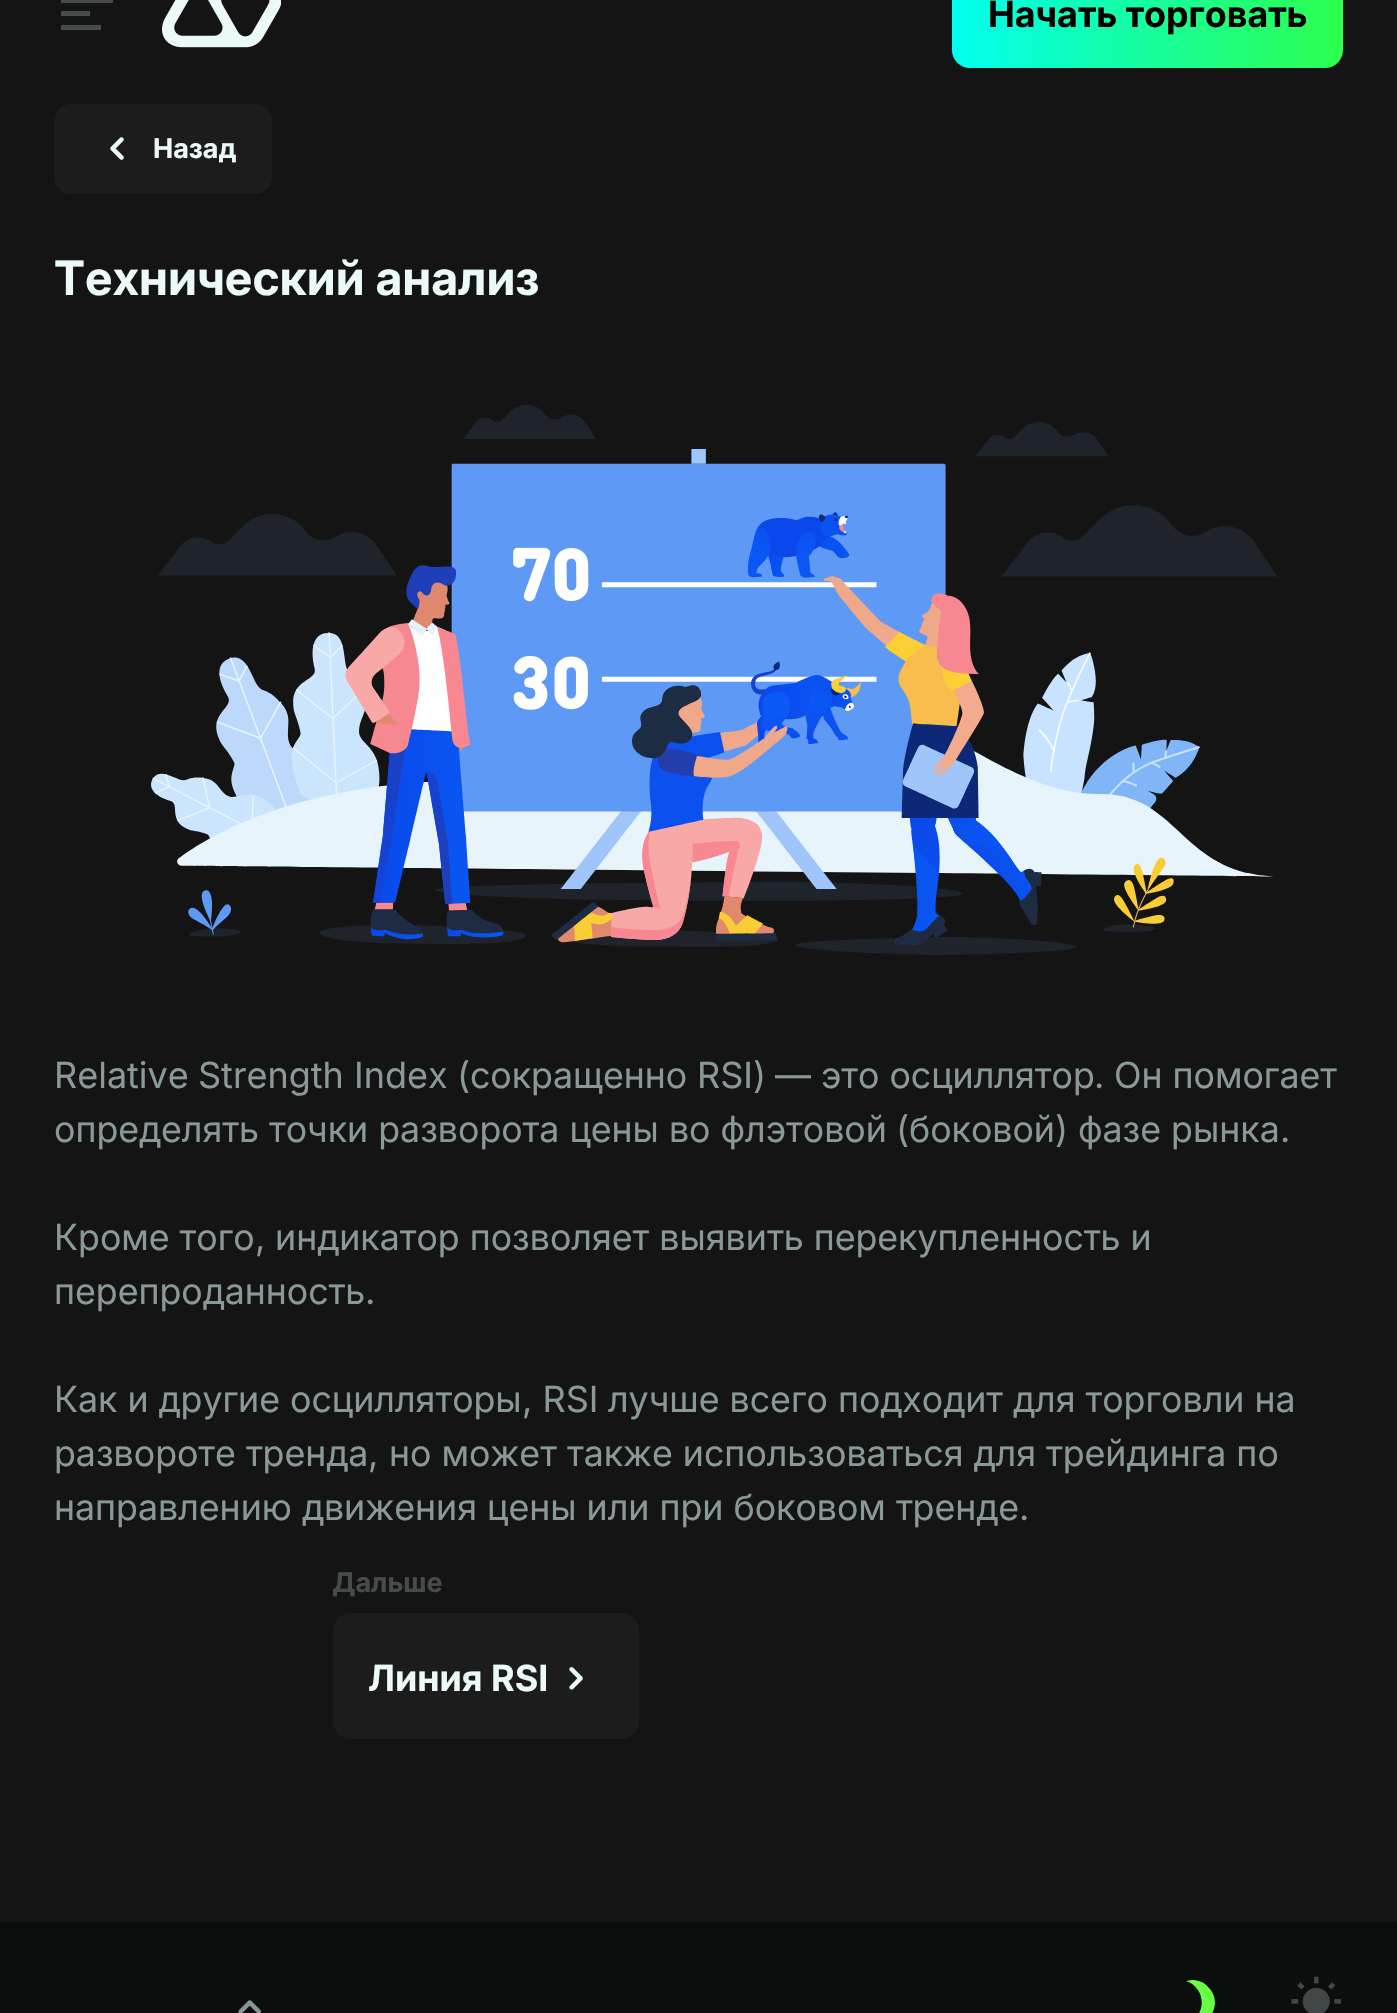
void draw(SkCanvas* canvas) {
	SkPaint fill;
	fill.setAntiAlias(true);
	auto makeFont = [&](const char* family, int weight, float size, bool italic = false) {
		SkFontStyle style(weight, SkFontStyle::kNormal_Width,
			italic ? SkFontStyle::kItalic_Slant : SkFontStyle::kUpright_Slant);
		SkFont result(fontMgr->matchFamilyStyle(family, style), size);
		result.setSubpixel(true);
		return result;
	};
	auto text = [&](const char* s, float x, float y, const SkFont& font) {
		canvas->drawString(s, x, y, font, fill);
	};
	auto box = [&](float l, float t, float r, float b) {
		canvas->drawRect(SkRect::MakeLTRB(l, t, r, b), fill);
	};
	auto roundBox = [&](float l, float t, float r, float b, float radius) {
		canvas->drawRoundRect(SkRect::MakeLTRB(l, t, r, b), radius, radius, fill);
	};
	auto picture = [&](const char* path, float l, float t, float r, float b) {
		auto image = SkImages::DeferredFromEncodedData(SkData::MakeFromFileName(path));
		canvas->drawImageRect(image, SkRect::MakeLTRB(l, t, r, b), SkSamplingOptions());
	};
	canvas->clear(0xFF141414);
	fill.setColor(0xFF464C4C);
	box(61, 0, 113, 3);
	box(61, 11, 90, 16);
	box(61, 25, 101, 30);
	picture("image0.png", 162, 0, 281, 48);
	{
		const SkColor colors[] = {0xFF01FEEF, 0xFF2DFE4D};
		const float stops[] = {0, 1};
		const SkPoint ends[] = {{952, 14}, {1343, 13}};
		fill.setShader(SkGradientShader::MakeLinear(ends, colors, stops, 2, SkTileMode::kClamp));
		fill.setAlpha(255);
	}
	roundBox(952, -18, 1343, 68, 18);
	fill.setShader(nullptr);
	fill.setColor(0xFF1C1C1C);
	roundBox(54, 104, 272, 194, 18);
	picture("image1.png", 110, 137, 124, 160);
	picture("image2.png", 151, 404, 1277, 955);
	roundBox(333, 1613, 639, 1739, 18);
	picture("image3.png", 569, 1667, 583, 1690);
	fill.setColor(0xFF0C0D0D);
	box(0, 1922, 1397, 2013);
	picture("image4.png", 238, 2000, 261, 2013);
	fill.setColor(0xFF69FF41);
	canvas->drawPath(SkPathBuilder().moveTo(1192, 1980).lineTo(1186, 1981).cubicTo(1207, 1988, 1207, 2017, 1186, 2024).cubicTo(1208, 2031, 1225, 2003, 1208, 1987).cubicTo(1204, 1982, 1198, 1980, 1192, 1980).close().detach(), fill);
	picture("image5.png", 1291, 1976, 1341, 2013);
	auto font1 = makeFont("Inter", 700, 36);
	fill.setColor(0xFF000000);
	text("Начать торговать", 988, 27, font1);
	auto font2 = makeFont("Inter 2", 700, 27);
	fill.setColor(0xFFECF9F9);
	text("Назад", 153, 158, font2);
	auto font3 = makeFont("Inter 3", 700, 47.25f);
	text("Технический анализ", 54, 295, font3);
	auto font4 = makeFont("Inter", 400, 36);
	fill.setColor(0xFF899898);
	text("Relative", 54, 1088, font4);
	text("Strength", 198, 1088, font4);
	text("Index", 354, 1088, font4);
	text("(", 457, 1088, font4);
	auto font5 = makeFont("Inter 2", 400, 36);
	text("сокращенно", 470, 1088, font5);
	text("RSI)", 697, 1088, font4);
	text("—", 775, 1088, font4);
	text("это осциллятор", 821, 1088, font5);
	text("Он помогает", 1114, 1088, font5);
	text(".", 1094, 1088, font4);
	text("определять точки разворота цены во флэтовой", 54, 1142, font5);
	text("(", 896, 1142, font4);
	text("боковой", 909, 1142, font5);
	text(")", 1055, 1142, font4);
	text("фазе рынка", 1078, 1142, font5);
	text(".", 1280, 1142, font4);
	text("Кроме того", 54, 1250, font5);
	text(",", 255, 1250, font4);
	text("индикатор позволяет выявить перекупленность и", 275, 1250, font5);
	text("перепроданность", 54, 1304, font5);
	text(".", 365, 1304, font4);
	text("Как и другие осцилляторы", 54, 1412, font5);
	text(", RSI", 522, 1412, font4);
	text("лучше всего подходит для торговли на", 608, 1412, font5);
	text("развороте тренда", 54, 1466, font5);
	text(",", 368, 1466, font4);
	text("но может также использоваться для трейдинга по", 389, 1466, font5);
	text("направлению движения цены или при боковом тренде", 54, 1520, font5);
	text(".", 1019, 1520, font4);
	fill.setColor(0xFF464C4C);
	text("Дальше", 332, 1592, font2);
	fill.setColor(0xFFECF9F9);
	text("Линия", 368, 1691, font1);
	auto font6 = makeFont("Inter 2", 700, 36);
	text("RSI", 491, 1691, font6);
}
